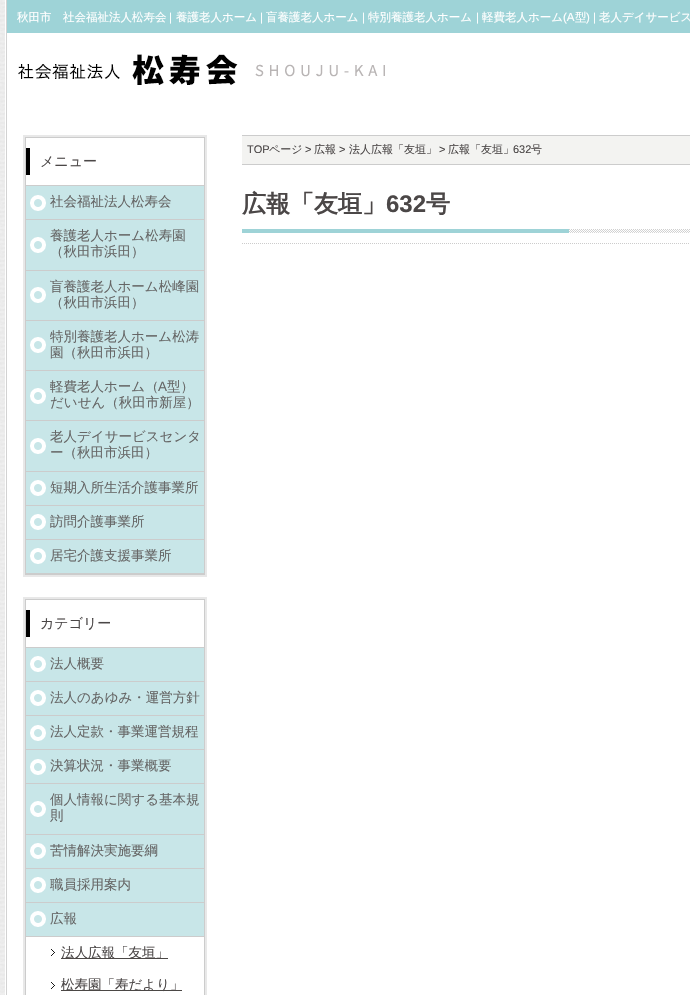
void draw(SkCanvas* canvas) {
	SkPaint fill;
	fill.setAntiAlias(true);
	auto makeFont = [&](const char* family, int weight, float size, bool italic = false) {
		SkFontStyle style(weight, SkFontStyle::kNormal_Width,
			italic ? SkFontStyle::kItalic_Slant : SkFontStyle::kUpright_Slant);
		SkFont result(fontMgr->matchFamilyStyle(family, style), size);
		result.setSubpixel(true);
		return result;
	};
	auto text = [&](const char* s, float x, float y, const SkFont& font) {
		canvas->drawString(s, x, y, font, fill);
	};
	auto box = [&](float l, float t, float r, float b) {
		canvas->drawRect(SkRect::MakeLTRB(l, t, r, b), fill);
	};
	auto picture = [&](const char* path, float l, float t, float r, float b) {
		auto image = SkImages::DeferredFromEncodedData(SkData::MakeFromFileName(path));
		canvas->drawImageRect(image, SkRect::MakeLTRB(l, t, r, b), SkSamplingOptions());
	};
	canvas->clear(0xFFFFFFFF);
	picture("image0.png", 0, 0, 690, 995);
	fill.setColor(0xFF9ED3D7);
	box(7, 0, 690, 33);
	picture("image1.png", 18, 54, 385, 85);
	fill.setStyle(SkPaint::kStroke_Style);
	fill.setStrokeWidth(2);
	fill.setColor(0xFFE8E8E8);
	canvas->drawRect(SkRect::MakeLTRB(24, 136, 206, 576), fill);
	fill.setStrokeWidth(1);
	fill.setColor(0xFFCCCCCC);
	canvas->drawRect(SkRect::MakeLTRB(25.5f, 137.5f, 204.5f, 574.5f), fill);
	fill.setStyle(SkPaint::kFill_Style);
	fill.setColor(0xFF000000);
	box(26, 148, 30, 175);
	fill.setColor(0xFFCCCCCC);
	box(26, 185, 204, 186);
	fill.setColor(0xFFC8E6E8);
	box(26, 186, 204, 219);
	picture("image2.png", 30, 195, 46, 211);
	fill.setColor(0xFFCCCCCC);
	box(26, 219, 204, 220);
	fill.setColor(0xFFC8E6E8);
	box(26, 220, 204, 270);
	picture("image2.png", 30, 237, 46, 253);
	fill.setColor(0xFFCCCCCC);
	box(26, 270, 204, 271);
	fill.setColor(0xFFC8E6E8);
	box(26, 271, 204, 320);
	picture("image2.png", 30, 287, 46, 303);
	fill.setColor(0xFFCCCCCC);
	box(26, 320, 204, 321);
	fill.setColor(0xFFC8E6E8);
	box(26, 321, 204, 370);
	picture("image2.png", 30, 337, 46, 353);
	fill.setColor(0xFFCCCCCC);
	box(26, 370, 204, 371);
	fill.setColor(0xFFC8E6E8);
	box(26, 371, 204, 420);
	picture("image2.png", 30, 388, 46, 404);
	fill.setColor(0xFFCCCCCC);
	box(26, 420, 204, 421);
	fill.setColor(0xFFC8E6E8);
	box(26, 421, 204, 471);
	picture("image2.png", 30, 438, 46, 454);
	fill.setColor(0xFFCCCCCC);
	box(26, 471, 204, 472);
	fill.setColor(0xFFC8E6E8);
	box(26, 472, 204, 505);
	picture("image2.png", 30, 480, 46, 496);
	fill.setColor(0xFFCCCCCC);
	box(26, 505, 204, 506);
	fill.setColor(0xFFC8E6E8);
	box(26, 506, 204, 539);
	picture("image2.png", 30, 514, 46, 530);
	fill.setColor(0xFFCCCCCC);
	box(26, 539, 204, 540);
	fill.setColor(0xFFC8E6E8);
	box(26, 540, 204, 573);
	picture("image2.png", 30, 548, 46, 564);
	fill.setColor(0xFFCCCCCC);
	box(26, 573, 204, 574);
	fill.setStyle(SkPaint::kStroke_Style);
	fill.setStrokeWidth(2);
	fill.setColor(0xFFE8E8E8);
	canvas->drawRect(SkRect::MakeLTRB(24, 598, 206, 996), fill);
	fill.setStrokeWidth(1);
	fill.setColor(0xFFCCCCCC);
	canvas->drawRect(SkRect::MakeLTRB(25.5f, 599.5f, 204.5f, 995.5f), fill);
	fill.setStyle(SkPaint::kFill_Style);
	fill.setColor(0xFF000000);
	box(26, 610, 30, 637);
	fill.setColor(0xFFCCCCCC);
	box(26, 647, 204, 648);
	fill.setColor(0xFFC8E6E8);
	box(26, 648, 204, 681);
	picture("image2.png", 30, 656, 46, 672);
	fill.setColor(0xFFCCCCCC);
	box(26, 681, 204, 682);
	fill.setColor(0xFFC8E6E8);
	box(26, 682, 204, 715);
	picture("image2.png", 30, 690, 46, 706);
	fill.setColor(0xFFCCCCCC);
	box(26, 715, 204, 716);
	fill.setColor(0xFFC8E6E8);
	box(26, 716, 204, 749);
	picture("image2.png", 30, 725, 46, 741);
	fill.setColor(0xFFCCCCCC);
	box(26, 749, 204, 750);
	fill.setColor(0xFFC8E6E8);
	box(26, 750, 204, 783);
	picture("image2.png", 30, 759, 46, 775);
	fill.setColor(0xFFCCCCCC);
	box(26, 783, 204, 784);
	fill.setColor(0xFFC8E6E8);
	box(26, 784, 204, 834);
	picture("image2.png", 30, 801, 46, 817);
	fill.setColor(0xFFCCCCCC);
	box(26, 834, 204, 835);
	fill.setColor(0xFFC8E6E8);
	box(26, 835, 204, 868);
	picture("image2.png", 30, 843, 46, 859);
	fill.setColor(0xFFCCCCCC);
	box(26, 868, 204, 869);
	fill.setColor(0xFFC8E6E8);
	box(26, 869, 204, 902);
	picture("image2.png", 30, 877, 46, 893);
	fill.setColor(0xFFCCCCCC);
	box(26, 902, 204, 903);
	fill.setColor(0xFFC8E6E8);
	box(26, 903, 204, 936);
	picture("image2.png", 30, 911, 46, 927);
	fill.setColor(0xFFCCCCCC);
	box(26, 936, 204, 937);
	picture("image3.png", 51, 949, 55, 956);
	fill.setColor(0xFF4B4745);
	box(61, 958, 168, 959);
	picture("image3.png", 51, 982, 55, 989);
	box(61, 990, 182, 991);
	fill.setColor(0xFFF3F3F1);
	box(242, 136, 690, 164);
	fill.setColor(0xFFCCCCCC);
	box(242, 135, 690, 136);
	box(242, 164, 690, 165);
	picture("image4.png", 242, 229, 690, 233);
	fill.setStyle(SkPaint::kStroke_Style);
	fill.setPathEffect(SkDashPathEffect::Make({{1, 1}}, 0));
	canvas->drawPath(SkPathBuilder().moveTo(242, 243.5f).lineTo(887, 243.5f).detach(), fill);
	fill.setPathEffect(nullptr);
	auto font1 = makeFont("WenQuanYi Zen Hei", 500, 11.5f);
	fill.setStyle(SkPaint::kFill_Style);
	fill.setColor(0xFFFFFFFF);
	text("秋田市　社会福祉法人松寿会", 17, 21, font1);
	auto font2 = makeFont("Liberation Sans", 400, 11.5f);
	text("|", 169, 21, font2);
	text("養護老人ホーム", 176, 21, font1);
	text("|", 260, 21, font2);
	text("盲養護老人ホーム", 266, 21, font1);
	text("|", 362, 21, font2);
	text("特別養護老人ホーム", 368, 21, font1);
	text("|", 476, 21, font2);
	text("軽費老人ホーム", 482, 21, font1);
	text("(A", 563, 21, font2);
	text("型", 575, 21, font1);
	text(") |", 586, 21, font2);
	text("老人デイサービス", 599, 21, font1);
	auto font3 = makeFont("WenQuanYi Zen Hei", 500, 14);
	fill.setColor(0xFF4B4747);
	text("メニュー", 40, 166, font3);
	auto font4 = makeFont("WenQuanYi Zen Hei", 500, 13.5f);
	fill.setColor(0xFF666666);
	text("社会福祉法人松寿会", 50, 206, font4);
	text("養護老人ホーム松寿園", 50, 240, font4);
	text("（秋田市浜田）", 50, 256, font4);
	text("盲養護老人ホーム松峰園", 50, 291, font4);
	text("（秋田市浜田）", 50, 307, font4);
	text("特別養護老人ホーム松涛", 50, 341, font4);
	text("園（秋田市浜田）", 50, 357, font4);
	text("軽費老人ホーム（", 50, 391, font4);
	auto font5 = makeFont("Liberation Sans", 400, 13.5f);
	text("A", 158, 391, font5);
	text("型）", 167, 391, font4);
	text("だいせん（秋田市新屋）", 50, 407, font4);
	text("老人デイサービスセンタ", 50, 441, font4);
	text("ー（秋田市浜田）", 50, 457, font4);
	text("短期入所生活介護事業所", 50, 492, font4);
	text("訪問介護事業所", 50, 526, font4);
	text("居宅介護支援事業所", 50, 560, font4);
	fill.setColor(0xFF4B4747);
	text("カテゴリー", 40, 628, font3);
	fill.setColor(0xFF666666);
	text("法人概要", 50, 668, font4);
	text("法人のあゆみ・運営方針", 50, 702, font4);
	text("法人定款・事業運営規程", 50, 736, font4);
	text("決算状況・事業概要", 50, 770, font4);
	text("個人情報に関する基本規", 50, 804, font4);
	text("則", 50, 820, font4);
	text("苦情解決実施要綱", 50, 855, font4);
	text("職員採用案内", 50, 889, font4);
	text("広報", 50, 923, font4);
	fill.setColor(0xFF4B4747);
	text("法人広報「友垣」", 61, 957, font4);
	text("松寿園「寿だより」", 61, 989, font4);
	auto font6 = makeFont("Liberation Sans", 400, 11);
	text("TOP", 247, 153, font6);
	auto font7 = makeFont("WenQuanYi Zen Hei", 500, 11);
	text("ページ", 269, 153, font7);
	text(">", 305, 153, font6);
	text("広報", 314, 153, font7);
	text(">", 339, 153, font6);
	text("法人広報「友垣」", 349, 153, font7);
	text(">", 439, 153, font6);
	text("広報「友垣」", 448, 153, font7);
	text("632", 513, 153, font6);
	text("号", 531, 153, font7);
	auto font8 = makeFont("WenQuanYi Zen Hei", 700, 24);
	text("広報「友垣」", 242, 212, font8);
	auto font9 = makeFont("Liberation Sans", 700, 24);
	text("632", 386, 212, font9);
	text("号", 426, 212, font8);
}
